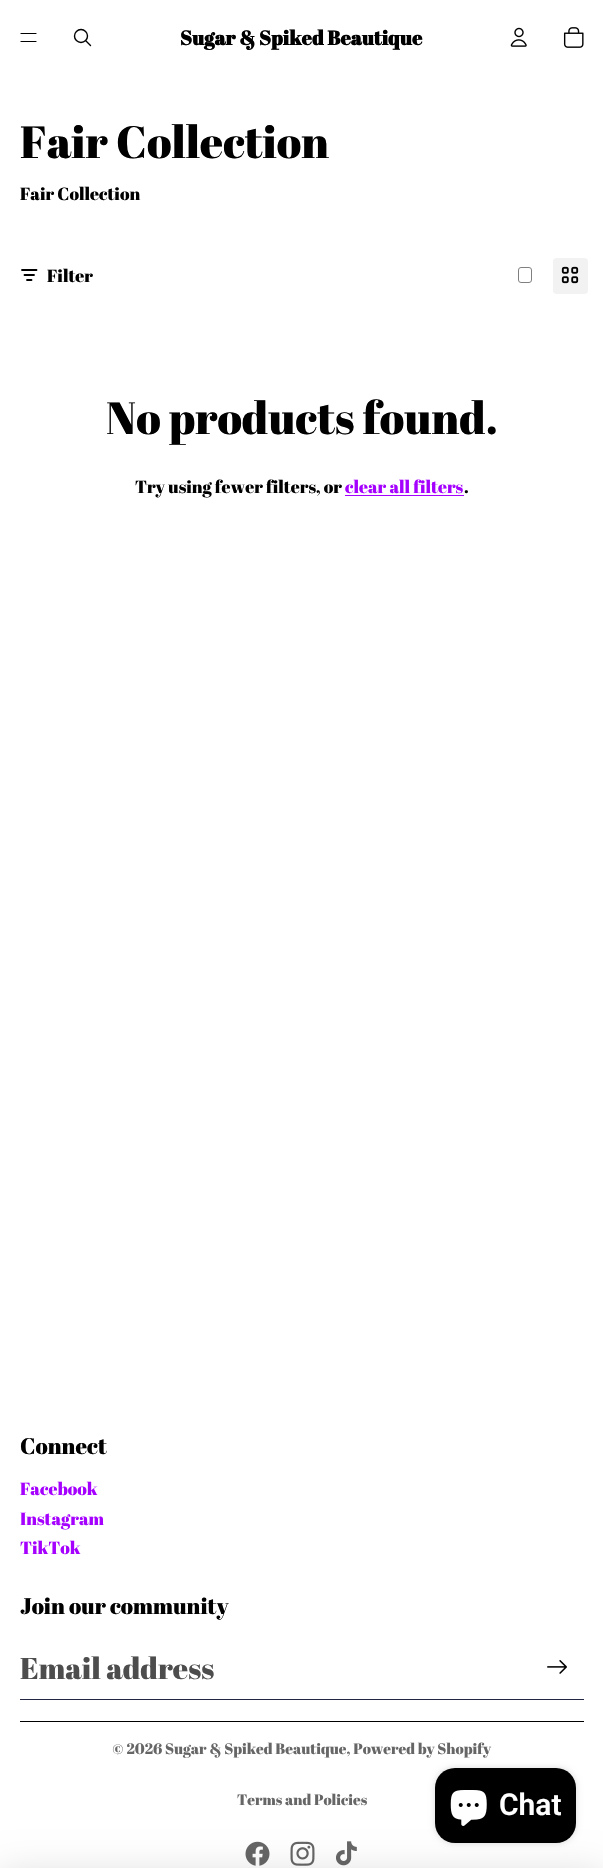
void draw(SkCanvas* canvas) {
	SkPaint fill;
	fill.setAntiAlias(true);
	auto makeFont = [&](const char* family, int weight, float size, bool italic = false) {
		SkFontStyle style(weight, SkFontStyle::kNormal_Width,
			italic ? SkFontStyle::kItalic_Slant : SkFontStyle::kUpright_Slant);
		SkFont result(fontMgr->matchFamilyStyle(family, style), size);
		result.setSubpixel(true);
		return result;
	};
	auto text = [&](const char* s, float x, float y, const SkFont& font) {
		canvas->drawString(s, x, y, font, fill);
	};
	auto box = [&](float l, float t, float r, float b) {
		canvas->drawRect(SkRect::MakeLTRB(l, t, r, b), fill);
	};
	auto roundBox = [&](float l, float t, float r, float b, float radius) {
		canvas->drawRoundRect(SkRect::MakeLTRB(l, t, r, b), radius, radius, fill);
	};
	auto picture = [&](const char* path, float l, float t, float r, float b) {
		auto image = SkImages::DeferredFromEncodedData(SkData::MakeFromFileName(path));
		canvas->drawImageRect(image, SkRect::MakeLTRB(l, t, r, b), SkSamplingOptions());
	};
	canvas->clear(0xFFFFFFFF);
	fill.setStyle(SkPaint::kStroke_Style);
	fill.setStrokeWidth(1.2f);
	fill.setStrokeCap(SkPaint::kRound_Cap);
	fill.setColor(0xFF000000);
	canvas->drawPath(SkPathBuilder().moveTo(21, 33.5f).lineTo(36, 33.5f).moveTo(21, 41.5f).lineTo(36, 41.5f).detach(), fill);
	fill.setStrokeWidth(1.4f);
	fill.setStrokeCap(SkPaint::kButt_Cap);
	canvas->drawCircle(81, 36, 6.5f, fill);
	fill.setStrokeCap(SkPaint::kRound_Cap);
	fill.setStrokeJoin(SkPaint::kRound_Join);
	canvas->drawPath(SkPathBuilder().moveTo(86, 41).lineTo(90.5f, 45.5f).detach(), fill);
	picture("image0.png", 510, 27, 527, 47);
	picture("image1.png", 563, 27, 584, 48);
	fill.setStrokeWidth(1.8f);
	fill.setStrokeJoin(SkPaint::kMiter_Join);
	canvas->drawPath(SkPathBuilder().moveTo(36.5f, 270).lineTo(22, 270).moveTo(34, 275).lineTo(24.5f, 275).moveTo(27, 280).lineTo(31.5f, 280).detach(), fill);
	fill.setStrokeWidth(1);
	fill.setStrokeCap(SkPaint::kButt_Cap);
	fill.setColor(0xFF808080);
	canvas->drawRoundRect(SkRect::MakeLTRB(518.5f, 267.5f, 531.5f, 282.5f), 2.5f, 2.5f, fill);
	fill.setStyle(SkPaint::kFill_Style);
	fill.setColor(0xFFF2F2F2);
	roundBox(553, 258, 588, 294, 4);
	picture("image2.png", 561, 266, 579, 284);
	fill.setColor(0xFFA500FF);
	box(345, 495, 464, 496);
	fill.setColor(0xFF232743);
	canvas->drawPath(SkPathBuilder().moveTo(20, 1699).lineTo(20, 1700).lineTo(584, 1700).lineTo(584, 1638).lineTo(584, 1699).close().detach(), fill);
	picture("image3.png", 547, 1660, 567, 1674);
	fill.setColor(0xFF000000);
	box(20, 1721, 584, 1722);
	picture("image4.png", 245, 1841, 270, 1866);
	picture("image5.png", 290, 1841, 315, 1866);
	picture("image6.png", 336, 1841, 357, 1866);
	fill.setColor(0x26000000);
	fill.setMaskFilter(SkMaskFilter::MakeBlur(kNormal_SkBlurStyle, 3));
	canvas->drawRoundRect(SkRect::MakeLTRB(435, 1768, 576, 1843), 20, 20, fill);
	fill.setMaskFilter(nullptr);
	fill.setMaskFilter(SkMaskFilter::MakeBlur(kNormal_SkBlurStyle, 19));
	canvas->drawRect(SkRect::MakeLTRB(0, 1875, 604, 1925), fill);
	fill.setMaskFilter(nullptr);
	fill.setColor(0xFF000000);
	roundBox(435, 1768, 576, 1843, 20);
	picture("image7.png", 450, 1790, 487, 1826);
	auto font1 = makeFont("Abril Fatface", 700, 20);
	text("Sugar & Spiked Beautique", 180, 45, font1);
	auto font2 = makeFont("Abril Fatface", 400, 45);
	text("Fair Collection", 20, 158, font2);
	auto font3 = makeFont("Abril Fatface", 400, 17.5f);
	text("Fair Collection", 20, 200, font3);
	text("Filter", 47, 282, font3);
	text("No products found.", 106, 434, font2);
	text("Try using fewer filters, or", 135, 493, font3);
	fill.setColor(0xFFA500FF);
	text("clear all filters", 345, 493, font3);
	fill.setColor(0xFF000000);
	text(".", 464, 493, font3);
	auto font4 = makeFont("Abril Fatface", 400, 22.5f);
	text("Connect", 20, 1454, font4);
	fill.setColor(0xFFA500FF);
	text("Facebook", 20, 1495, font3);
	text("Instagram", 20, 1525, font3);
	text("TikTok", 20, 1554, font3);
	fill.setColor(0xFF000000);
	text("Join our community", 20, 1614, font4);
	auto font5 = makeFont("Abril Fatface", 400, 30);
	fill.setColor(0xFF4D4D4D);
	text("Email address", 20, 1679, font5);
	auto font6 = makeFont("Abril Fatface", 400, 15);
	fill.setColor(0xFF666666);
	text("© 2026 Sugar & Spiked Beautique, Powered by Shopify", 112, 1754, font6);
	text("Terms and Policies", 237, 1805, font6);
	auto font7 = makeFont("Roboto", 600, 30);
	fill.setColor(0xFFFFFFFF);
	text("Chat", 499, 1815, font7);
}
